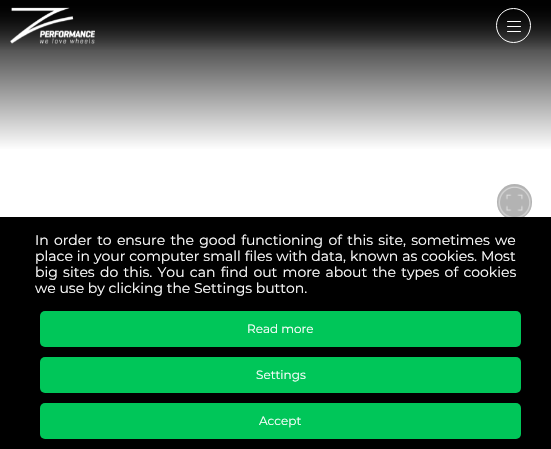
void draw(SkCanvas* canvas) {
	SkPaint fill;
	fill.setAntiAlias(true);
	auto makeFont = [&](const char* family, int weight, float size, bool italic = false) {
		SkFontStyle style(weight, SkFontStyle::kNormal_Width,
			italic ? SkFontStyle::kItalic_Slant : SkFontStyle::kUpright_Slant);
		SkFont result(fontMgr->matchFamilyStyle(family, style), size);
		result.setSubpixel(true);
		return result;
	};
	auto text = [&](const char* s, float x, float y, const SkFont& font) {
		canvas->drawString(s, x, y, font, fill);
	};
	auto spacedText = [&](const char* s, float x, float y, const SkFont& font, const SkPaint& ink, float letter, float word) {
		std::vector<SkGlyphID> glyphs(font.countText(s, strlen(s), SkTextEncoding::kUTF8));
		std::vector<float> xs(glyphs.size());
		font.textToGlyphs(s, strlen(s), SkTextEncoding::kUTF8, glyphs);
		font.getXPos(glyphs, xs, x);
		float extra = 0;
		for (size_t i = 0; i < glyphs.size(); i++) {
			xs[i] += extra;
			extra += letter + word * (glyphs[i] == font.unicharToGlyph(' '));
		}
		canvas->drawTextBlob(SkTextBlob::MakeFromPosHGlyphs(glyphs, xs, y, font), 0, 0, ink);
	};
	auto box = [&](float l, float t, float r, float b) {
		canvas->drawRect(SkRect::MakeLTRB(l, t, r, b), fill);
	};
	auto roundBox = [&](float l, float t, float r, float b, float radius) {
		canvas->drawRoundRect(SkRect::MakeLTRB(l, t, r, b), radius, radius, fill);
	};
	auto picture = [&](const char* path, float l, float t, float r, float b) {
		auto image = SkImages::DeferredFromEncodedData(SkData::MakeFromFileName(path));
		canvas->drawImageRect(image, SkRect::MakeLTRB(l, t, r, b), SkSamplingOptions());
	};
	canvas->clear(0xFFFFFFFF);
	{
		const SkColor colors[] = {0xFF000000, 0xFFFFFFFF};
		const float stops[] = {0, 1};
		const SkPoint ends[] = {{276, 0}, {276, 150}};
		fill.setShader(SkGradientShader::MakeLinear(ends, colors, stops, 2, SkTileMode::kClamp));
		fill.setAlpha(255);
	}
	box(0, 0, 551, 149);
	{
		const SkColor colors[] = {0xFF000000, 0x00000000};
		const float stops[] = {0, 1};
		const SkPoint ends[] = {{276, 0}, {276, 51}};
		fill.setShader(SkGradientShader::MakeLinear(ends, colors, stops, 2, SkTileMode::kClamp));
		fill.setAlpha(255);
	}
	box(0, 1, 551, 50);
	picture("image0.png", 10, 7, 95, 44);
	fill.setStyle(SkPaint::kStroke_Style);
	fill.setStrokeWidth(1);
	fill.setShader(nullptr);
	fill.setColor(0xFFFFFFFF);
	canvas->drawCircle(513.5f, 25.5f, 17, fill);
	fill.setStyle(SkPaint::kFill_Style);
	roundBox(507, 21, 521, 22, 0.5f);
	roundBox(507, 26, 521, 27, 0.5f);
	roundBox(507, 31, 521, 32, 0.5f);
	fill.setColor(0xFFB3B3B3);
	roundBox(497, 184, 532, 220, 17.5f);
	picture("image1.png", 498, 186, 531, 217);
	fill.setColor(0xFF000000);
	box(0, 217, 551, 449);
	fill.setColor(0xFF00C659);
	roundBox(40, 311, 521, 347, 5);
	roundBox(40, 357, 521, 393, 5);
	roundBox(40, 403, 521, 439, 5);
	auto font1 = makeFont("Montserrat", 400, 14);
	fill.setColor(0xFFFFFFFF);
	spacedText("In order to ensure the good functioning of this site, sometimes we", 35, 245, font1, fill, 0, 1.6f);
	spacedText("place in your computer small files with data, known as cookies. Most", 35, 261, font1, fill, 0, 0.25f);
	spacedText("big sites do this. You can find out more about the types of cookies", 35, 277, font1, fill, 0, 1.6f);
	text("we use by clicking the Settings button.", 35, 293, font1);
	auto font2 = makeFont("Montserrat", 400, 12);
	text("Read more", 247, 333, font2);
	text("Settings", 256, 379, font2);
	text("Accept", 259, 425, font2);
}
